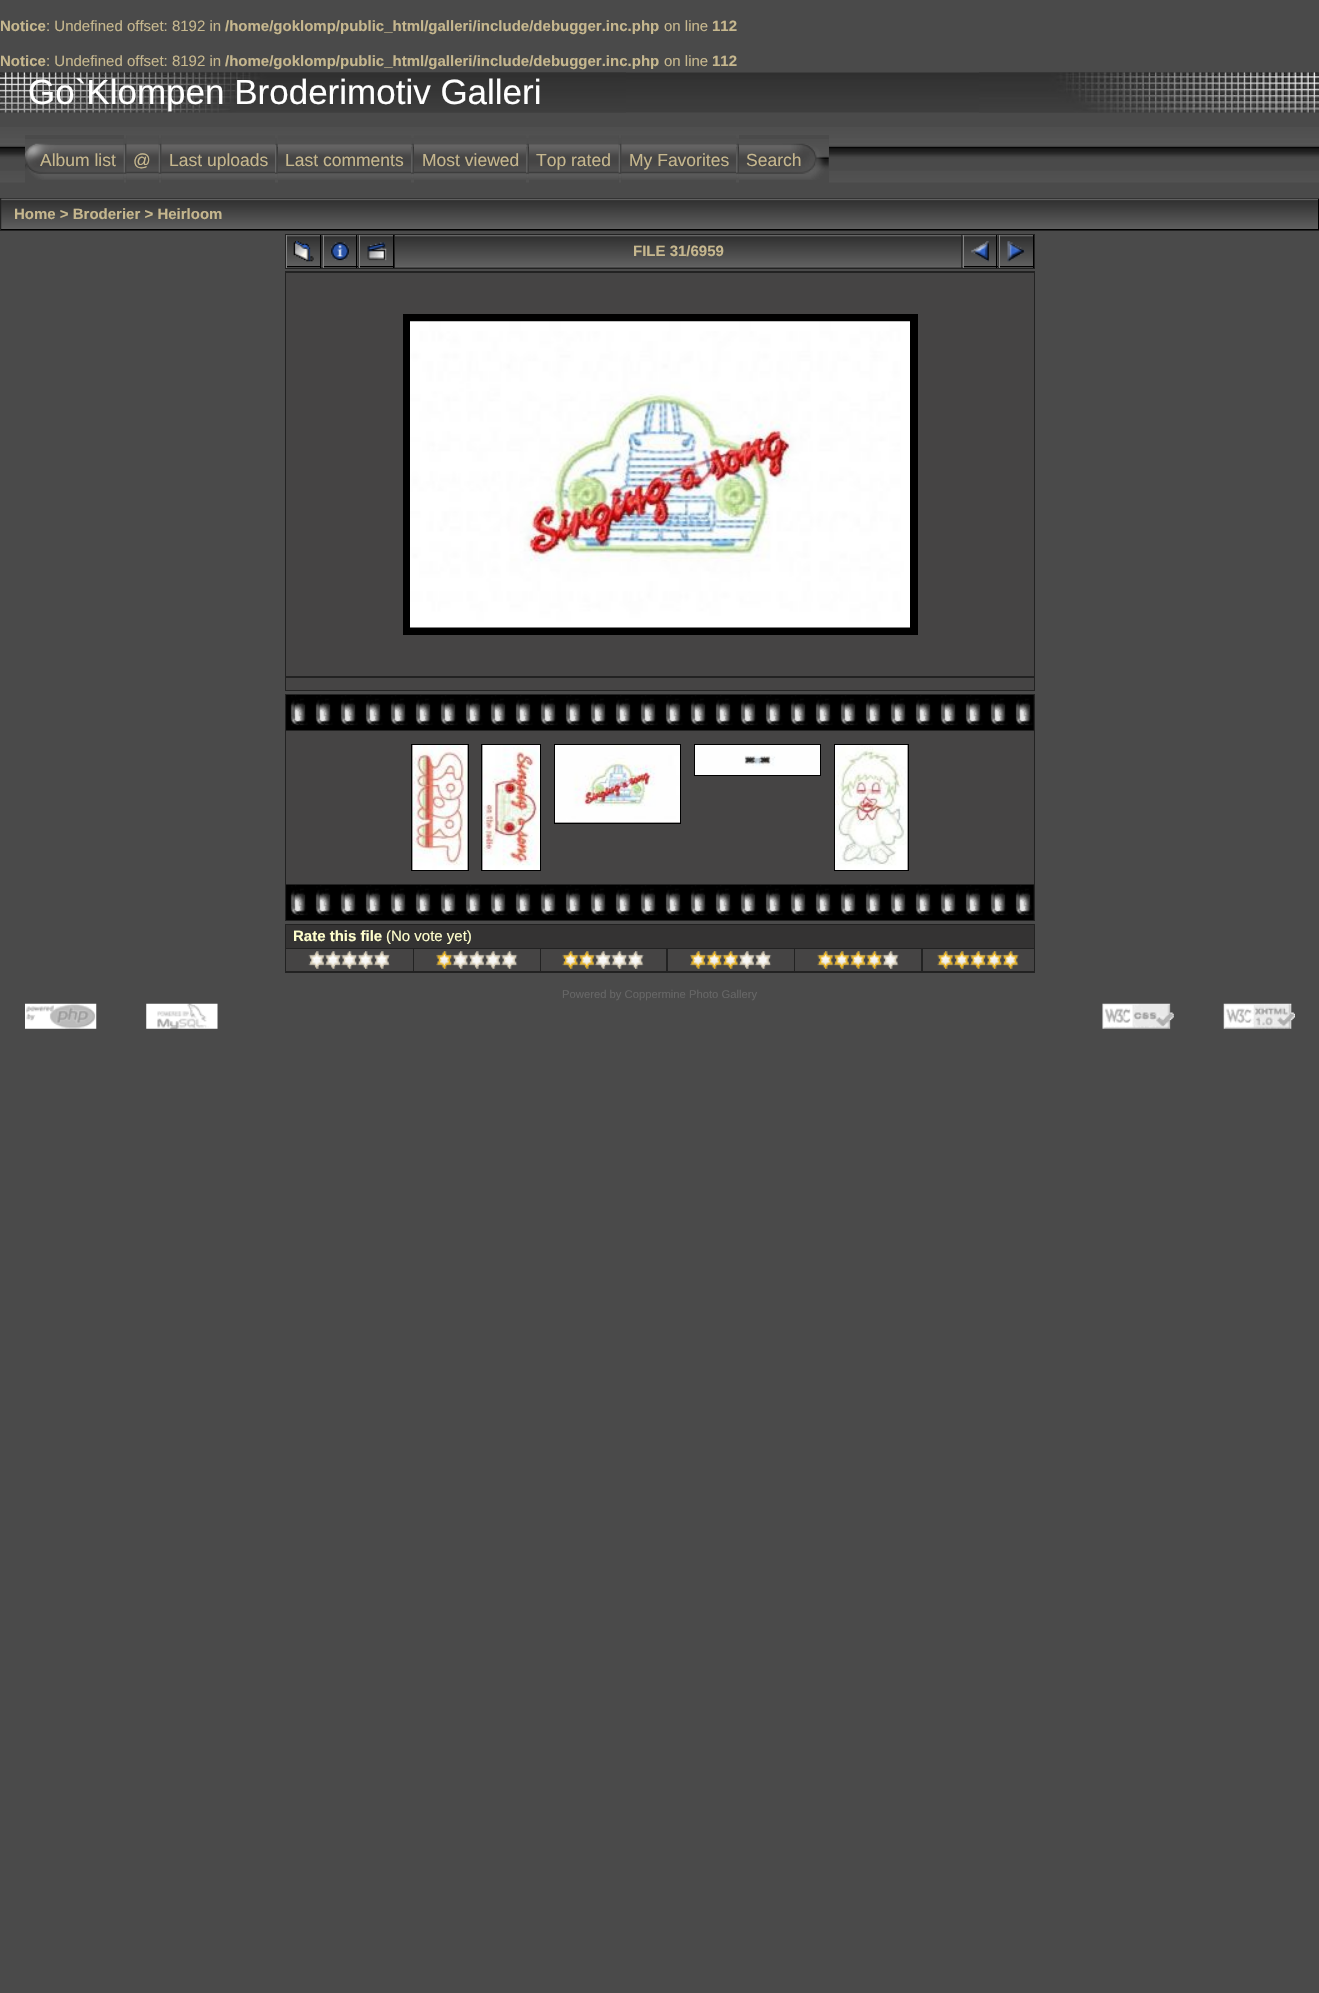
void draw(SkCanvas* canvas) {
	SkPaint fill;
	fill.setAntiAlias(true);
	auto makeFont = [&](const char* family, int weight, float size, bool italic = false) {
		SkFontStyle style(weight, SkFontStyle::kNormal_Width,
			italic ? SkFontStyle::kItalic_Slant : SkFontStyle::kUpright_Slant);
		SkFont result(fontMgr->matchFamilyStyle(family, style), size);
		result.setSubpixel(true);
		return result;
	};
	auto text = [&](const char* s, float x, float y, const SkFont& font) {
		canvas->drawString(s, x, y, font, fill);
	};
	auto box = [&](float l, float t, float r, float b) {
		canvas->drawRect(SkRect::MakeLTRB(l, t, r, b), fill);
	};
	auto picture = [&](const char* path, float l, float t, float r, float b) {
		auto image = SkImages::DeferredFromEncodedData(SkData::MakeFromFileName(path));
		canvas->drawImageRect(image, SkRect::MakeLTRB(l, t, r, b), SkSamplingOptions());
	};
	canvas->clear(0xFF4A4A4A);
	picture("image0.png", 0, 72, 1319, 113);
	picture("image1.png", 0, 72, 626, 113);
	picture("image2.png", 979, 72, 1319, 113);
	picture("image3.png", 0, 127, 1319, 183);
	fill.setColor(0xFF4A4A4A);
	box(25, 135, 124, 183);
	picture("image4.png", 25, 139, 124, 180);
	box(126, 135, 159, 183);
	picture("image6.png", 126, 135, 159, 180);
	picture("image5.png", 123, 138, 127, 178);
	box(161, 135, 275, 183);
	picture("image8.png", 161, 135, 275, 180);
	picture("image7.png", 158, 138, 162, 178);
	picture("image10.png", 277, 135, 412, 180);
	picture("image9.png", 275, 138, 278, 178);
	box(278, 180, 411, 183);
	picture("image12.png", 413, 135, 527, 180);
	picture("image11.png", 411, 138, 414, 178);
	box(414, 180, 526, 183);
	box(529, 135, 619, 183);
	picture("image13.png", 528, 135, 619, 180);
	picture("image11.png", 526, 138, 529, 178);
	box(621, 135, 736, 183);
	picture("image14.png", 621, 135, 737, 180);
	picture("image7.png", 618, 138, 622, 178);
	box(739, 135, 829, 183);
	picture("image16.png", 738, 139, 829, 180);
	picture("image15.png", 736, 138, 739, 178);
	fill.setColor(0xFF222222);
	box(0, 198, 1319, 231);
	picture("image17.png", 1, 198, 1319, 229);
	fill.setColor(0xFF000000);
	box(1318, 199, 1319, 230);
	box(1, 229, 1319, 230);
	fill.setColor(0xFF222222);
	box(285, 234, 1035, 269);
	picture("image18.png", 321, 235, 322, 268);
	fill.setColor(0xFF3F3F3F);
	box(287, 267, 320, 268);
	picture("image19.png", 287, 235, 322, 268);
	fill.setColor(0xFF000000);
	box(320, 235, 321, 268);
	box(286, 266, 321, 267);
	fill.setColor(0xFF838383);
	box(286, 235, 287, 268);
	picture("image20.png", 293, 241, 314, 262);
	picture("image21.png", 322, 235, 323, 268);
	fill.setColor(0xFF3F3F3F);
	box(324, 235, 358, 268);
	picture("image22.png", 322, 235, 358, 268);
	fill.setColor(0xFF000000);
	box(356, 235, 357, 268);
	box(323, 266, 358, 267);
	fill.setColor(0xFF838383);
	box(323, 235, 324, 268);
	picture("image23.png", 331, 242, 349, 261);
	picture("image18.png", 358, 235, 359, 268);
	fill.setColor(0xFF3F3F3F);
	box(360, 267, 393, 268);
	picture("image24.png", 358, 235, 393, 268);
	fill.setColor(0xFF000000);
	box(393, 235, 394, 268);
	box(359, 266, 394, 267);
	fill.setColor(0xFF838383);
	box(359, 235, 360, 268);
	picture("image25.png", 367, 242, 387, 261);
	fill.setColor(0xFF3F3F3F);
	box(395, 267, 961, 268);
	picture("image26.png", 395, 235, 962, 268);
	picture("image21.png", 962, 235, 963, 268);
	box(964, 235, 998, 268);
	picture("image22.png", 962, 235, 998, 268);
	fill.setColor(0xFF000000);
	box(996, 235, 997, 268);
	box(963, 266, 998, 267);
	fill.setColor(0xFF838383);
	box(963, 235, 964, 268);
	picture("image27.png", 971, 241, 989, 262);
	picture("image18.png", 998, 235, 999, 268);
	fill.setColor(0xFF3F3F3F);
	box(1000, 267, 1033, 268);
	picture("image24.png", 998, 235, 1033, 268);
	fill.setColor(0xFF000000);
	box(1033, 235, 1034, 268);
	box(999, 266, 1034, 267);
	fill.setColor(0xFF838383);
	box(999, 235, 1000, 268);
	picture("image28.png", 1007, 241, 1025, 262);
	fill.setColor(0xFF222222);
	box(285, 271, 1035, 691);
	fill.setColor(0xFF454444);
	box(286, 273, 1034, 676);
	fill.setColor(0xFF000000);
	box(403, 314, 918, 635);
	picture("image29.png", 410, 321, 910, 628);
	fill.setColor(0xFF454444);
	box(286, 678, 1034, 690);
	fill.setColor(0xFF222222);
	box(285, 694, 1035, 921);
	picture("image30.png", 286, 695, 1034, 730);
	picture("image31.png", 286, 695, 296, 730);
	fill.setColor(0xFF454444);
	box(286, 731, 1034, 884);
	fill.setStyle(SkPaint::kStroke_Style);
	fill.setStrokeWidth(1);
	fill.setColor(0xFF000000);
	canvas->drawRect(SkRect::MakeLTRB(411.5f, 744.5f, 468.5f, 870.5f), fill);
	picture("image32.png", 412, 745, 468, 870);
	canvas->drawRect(SkRect::MakeLTRB(481.5f, 744.5f, 540.5f, 870.5f), fill);
	picture("image33.png", 482, 745, 540, 870);
	canvas->drawRect(SkRect::MakeLTRB(554.5f, 744.5f, 680.5f, 823.5f), fill);
	picture("image34.png", 555, 745, 680, 823);
	canvas->drawRect(SkRect::MakeLTRB(694.5f, 744.5f, 820.5f, 775.5f), fill);
	picture("image35.png", 695, 745, 820, 775);
	canvas->drawRect(SkRect::MakeLTRB(834.5f, 744.5f, 908.5f, 870.5f), fill);
	picture("image36.png", 835, 745, 908, 870);
	picture("image37.png", 286, 885, 1034, 920);
	picture("image31.png", 286, 885, 296, 920);
	fill.setStyle(SkPaint::kFill_Style);
	fill.setColor(0xFF222222);
	box(285, 924, 1035, 973);
	fill.setColor(0xFF343333);
	box(286, 925, 1034, 948);
	fill.setColor(0xFF454444);
	box(286, 949, 413, 971);
	picture("image38.png", 308, 951, 390, 969);
	box(414, 949, 540, 971);
	picture("image39.png", 436, 951, 518, 969);
	box(541, 949, 666, 971);
	picture("image40.png", 562, 951, 644, 969);
	box(668, 949, 794, 971);
	picture("image41.png", 690, 951, 772, 969);
	box(795, 949, 921, 971);
	picture("image42.png", 817, 951, 899, 969);
	box(923, 949, 1034, 971);
	picture("image43.png", 937, 951, 1019, 969);
	picture("image44.png", 25, 1003, 97, 1029);
	picture("image45.png", 146, 1003, 218, 1029);
	picture("image46.png", 1102, 1003, 1174, 1029);
	picture("image47.png", 1223, 1003, 1295, 1029);
	auto font1 = makeFont("Liberation Sans", 700, 15);
	fill.setColor(0xFFC6B78E);
	text("Notice", 0, 31, font1);
	auto font2 = makeFont("Liberation Sans", 400, 15);
	text(": Undefined offset: 8192 in", 46, 31, font2);
	text("/home/goklomp/public_html/galleri/include/debugger.inc.php", 225, 31, font1);
	text("on line", 664, 31, font2);
	text("112", 712, 31, font1);
	text("Notice", 0, 66, font1);
	text(": Undefined offset: 8192 in", 46, 66, font2);
	text("/home/goklomp/public_html/galleri/include/debugger.inc.php", 225, 66, font1);
	text("on line", 664, 66, font2);
	text("112", 712, 66, font1);
	auto font3 = makeFont("Liberation Sans", 400, 35);
	fill.setColor(0xFFFFFFFF);
	text("Go`Klompen Broderimotiv Galleri", 28, 104, font3);
	auto font4 = makeFont("Liberation Sans", 400, 17.5f);
	fill.setColor(0xFFC6B78E);
	text("Album list", 40, 166, font4);
	text("@", 133, 166, font4);
	text("Last uploads", 169, 166, font4);
	text("Last comments", 285, 166, font4);
	text("Most viewed", 422, 166, font4);
	text("Top rated", 536, 166, font4);
	text("My Favorites", 629, 166, font4);
	text("Search", 746, 166, font4);
	text("Home > Broderier > Heirloom", 14, 219, font1);
	text("FILE 31/6959", 633, 256, font1);
	fill.setColor(0xFFFFFFCC);
	text("Rate this file", 293, 941, font1);
	text("(No vote yet)", 386, 941, font2);
	auto font5 = makeFont("Liberation Sans", 400, 11.25f);
	fill.setColor(0xFF666666);
	text("Powered by Coppermine Photo Gallery", 562, 998, font5);
}
